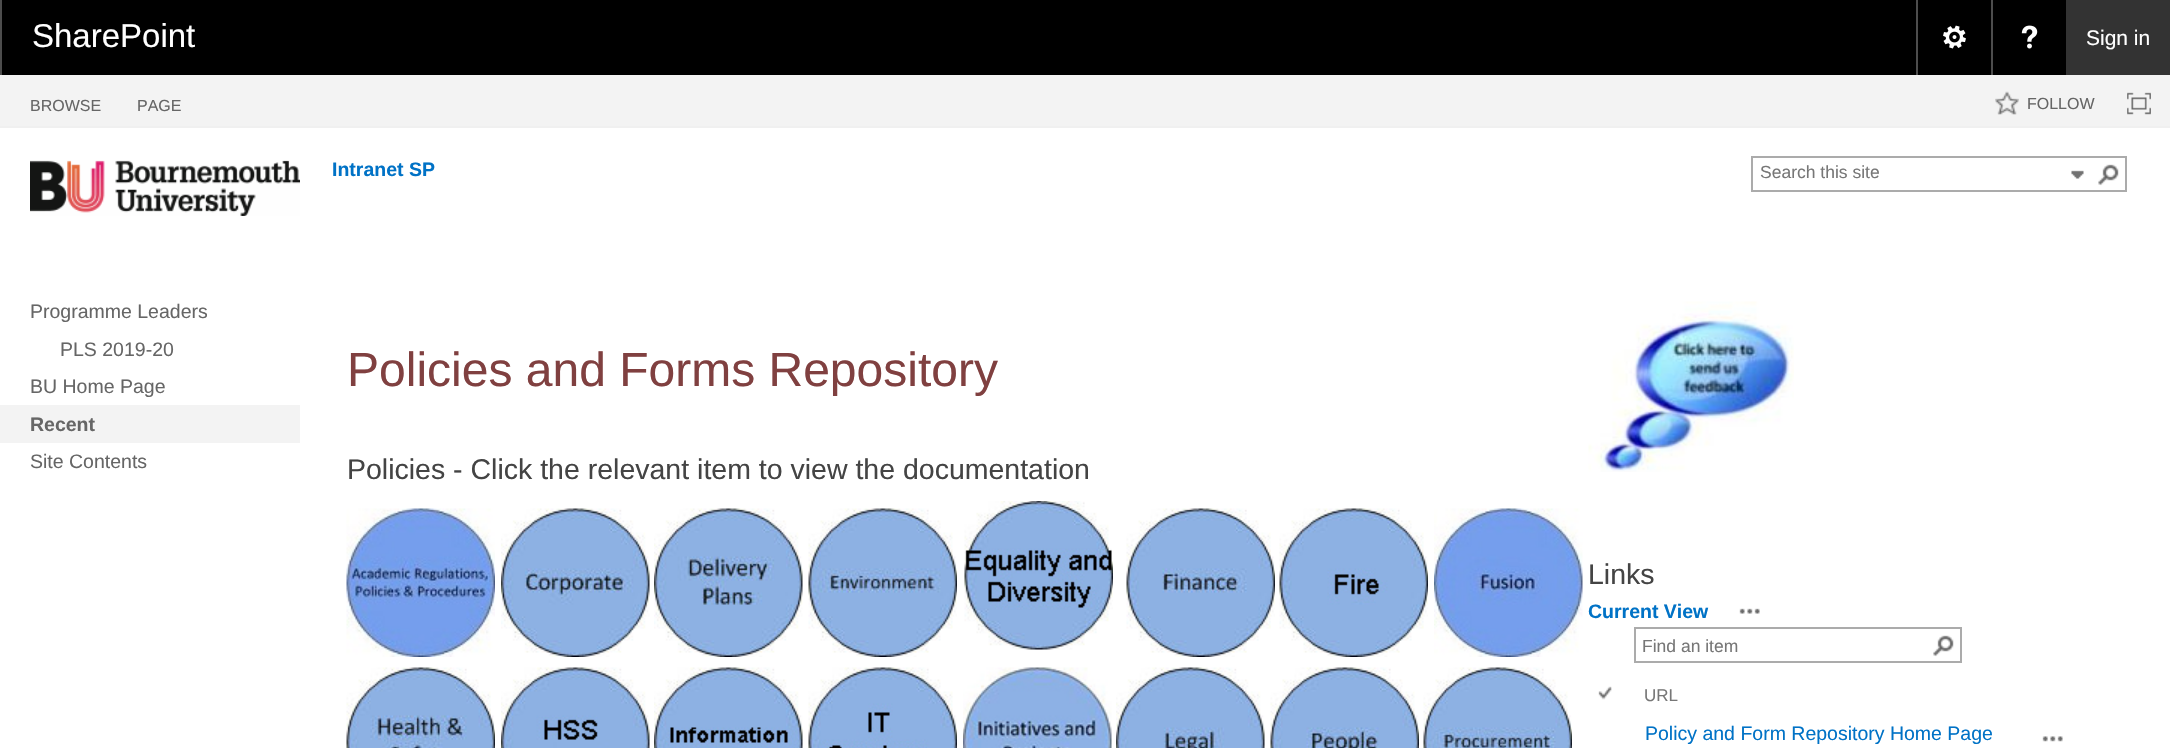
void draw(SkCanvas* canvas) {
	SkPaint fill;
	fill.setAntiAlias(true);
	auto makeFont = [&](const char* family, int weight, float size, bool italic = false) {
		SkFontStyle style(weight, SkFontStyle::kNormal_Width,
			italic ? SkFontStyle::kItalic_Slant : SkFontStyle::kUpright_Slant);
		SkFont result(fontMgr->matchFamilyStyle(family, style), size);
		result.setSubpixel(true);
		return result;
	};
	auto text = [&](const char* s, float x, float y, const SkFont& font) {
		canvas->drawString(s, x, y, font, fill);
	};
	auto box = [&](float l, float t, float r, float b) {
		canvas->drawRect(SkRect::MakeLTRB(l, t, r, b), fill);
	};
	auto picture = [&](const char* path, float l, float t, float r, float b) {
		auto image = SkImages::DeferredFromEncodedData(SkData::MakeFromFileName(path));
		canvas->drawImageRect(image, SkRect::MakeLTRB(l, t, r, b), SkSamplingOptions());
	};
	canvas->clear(0xFFFFFFFF);
	fill.setColor(0xFF000000);
	box(2, 0, 2066, 75);
	fill.setColor(0xFF4D4D4D);
	box(0, 0, 2, 75);
	box(1916, 0, 1918, 75);
	picture("image0.png", 1943, 25, 1966, 49);
	box(1991, 0, 1993, 75);
	picture("image1.png", 2021, 25, 2038, 49);
	fill.setColor(0xFF333333);
	box(2066, 0, 2170, 75);
	fill.setColor(0xFFF3F3F3);
	box(0, 75, 2170, 126);
	fill.setColor(0xFFF0F0F0);
	box(0, 126, 2170, 128);
	picture("image2.png", 1995, 91, 2019, 115);
	picture("image3.png", 2127, 92, 2151, 115);
	picture("image4.png", 30, 160, 300, 216);
	fill.setStyle(SkPaint::kStroke_Style);
	fill.setStrokeWidth(2);
	fill.setColor(0xFFABABAB);
	canvas->drawRect(SkRect::MakeLTRB(1752, 157, 2126, 191), fill);
	picture("image5.png", 2071, 170, 2084, 179);
	picture("image6.png", 2098, 164, 2119, 186);
	fill.setStyle(SkPaint::kFill_Style);
	fill.setColor(0xFFF3F3F3);
	box(0, 405, 300, 443);
	picture("image7.png", 346, 508, 495, 657);
	picture("image8.png", 501, 508, 650, 657);
	picture("image9.png", 654, 508, 803, 657);
	picture("image10.png", 808, 508, 957, 657);
	picture("image11.png", 964, 501, 1113, 650);
	picture("image12.png", 1126, 508, 1275, 657);
	picture("image13.png", 1279, 508, 1428, 657);
	picture("image14.png", 1434, 508, 1583, 657);
	picture("image15.png", 346, 667, 495, 748);
	picture("image16.png", 501, 667, 650, 748);
	picture("image17.png", 654, 667, 803, 748);
	picture("image18.png", 808, 667, 957, 748);
	picture("image19.png", 963, 667, 1112, 748);
	picture("image20.png", 1116, 667, 1265, 748);
	picture("image21.png", 1270, 667, 1419, 748);
	picture("image22.png", 1423, 667, 1572, 748);
	picture("image23.png", 1588, 301, 1794, 472);
	picture("image24.png", 1739, 608, 1760, 614);
	fill.setStyle(SkPaint::kStroke_Style);
	fill.setColor(0xFFABABAB);
	canvas->drawRect(SkRect::MakeLTRB(1635, 628, 1961, 662), fill);
	picture("image6.png", 1933, 635, 1954, 657);
	picture("image25.png", 1598, 686, 1612, 700);
	picture("image26.png", 2042, 736, 2063, 742);
	auto font1 = makeFont("Liberation Sans", 400, 33);
	fill.setStyle(SkPaint::kFill_Style);
	fill.setColor(0xFFFFFFFF);
	text("SharePoint", 32, 47, font1);
	auto font2 = makeFont("Liberation Sans", 400, 21);
	text("Sign in", 2086, 45, font2);
	auto font3 = makeFont("Liberation Sans", 400, 16);
	fill.setColor(0xFF666666);
	text("BROWSE", 30, 111, font3);
	text("PAGE", 137, 111, font3);
	text("FOLLOW", 2027, 109, font3);
	auto font4 = makeFont("Liberation Sans", 700, 19.5f);
	fill.setColor(0xFF0072C6);
	text("Intranet SP", 332, 176, font4);
	auto font5 = makeFont("Liberation Sans", 400, 17.5f);
	fill.setColor(0xFF777777);
	text("Search this site", 1760, 178, font5);
	auto font6 = makeFont("Liberation Sans", 400, 19.5f);
	fill.setColor(0xFF666666);
	text("Programme Leaders", 30, 318, font6);
	text("PLS 2019-20", 60, 356, font6);
	text("BU Home Page", 30, 393, font6);
	text("Recent", 30, 431, font4);
	text("Site Contents", 30, 468, font6);
	auto font7 = makeFont("Liberation Sans", 400, 48);
	fill.setColor(0xFF804040);
	text("Policies and Forms Repository", 347, 386, font7);
	auto font8 = makeFont("Liberation Sans", 400, 28.5f);
	fill.setColor(0xFF444444);
	text("Policies - Click the relevant item to view the documentation", 347, 479, font8);
	text("Links", 1588, 584, font8);
	fill.setColor(0xFF0072C6);
	text("Current View", 1588, 618, font4);
	fill.setColor(0xFF777777);
	text("Find an item", 1642, 652, font5);
	auto font9 = makeFont("Liberation Sans", 400, 17);
	text("URL", 1644, 701, font9);
	fill.setColor(0xFF0072C6);
	text("Policy and Form Repository Home Page", 1645, 740, font6);
}
